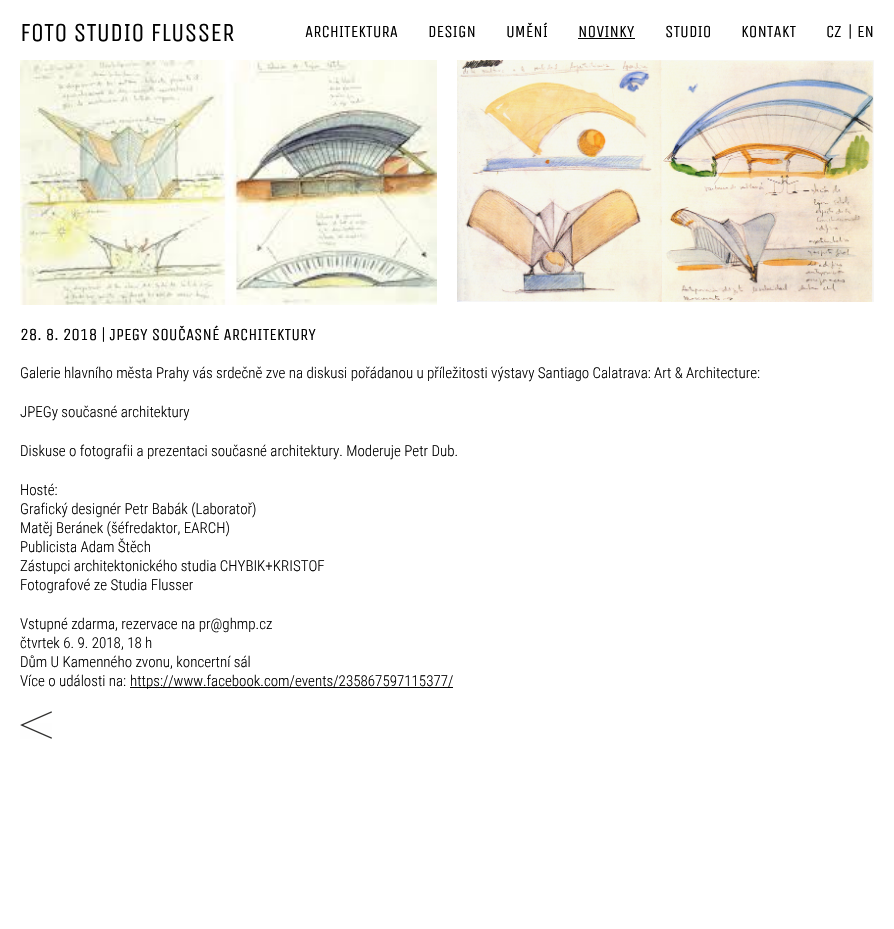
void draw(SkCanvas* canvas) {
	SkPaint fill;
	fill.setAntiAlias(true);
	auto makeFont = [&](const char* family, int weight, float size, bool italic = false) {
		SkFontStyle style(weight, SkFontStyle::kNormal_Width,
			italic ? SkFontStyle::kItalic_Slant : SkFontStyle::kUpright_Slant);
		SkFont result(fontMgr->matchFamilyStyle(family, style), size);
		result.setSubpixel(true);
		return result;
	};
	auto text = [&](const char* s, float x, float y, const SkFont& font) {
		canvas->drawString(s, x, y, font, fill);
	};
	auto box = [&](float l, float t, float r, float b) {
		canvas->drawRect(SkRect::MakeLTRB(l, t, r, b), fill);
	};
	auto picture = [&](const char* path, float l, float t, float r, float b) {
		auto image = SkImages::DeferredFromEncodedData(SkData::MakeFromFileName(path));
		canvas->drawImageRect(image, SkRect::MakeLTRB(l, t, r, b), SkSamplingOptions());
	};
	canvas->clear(0xFFFFFFFF);
	fill.setColor(0xFF000000);
	box(578, 38, 635, 39);
	picture("image0.png", 20, 60, 437, 305);
	picture("image1.png", 457, 60, 874, 302);
	box(130, 687, 453, 688);
	picture("image2.png", 20, 711, 52, 739);
	auto font1 = makeFont("Unica One", 400, 26);
	text("FOTO STUDIO FLUSSER", 20, 41, font1);
	auto font2 = makeFont("Unica One", 400, 17);
	text("ARCHITEKTURA", 305, 37, font2);
	text("DESIGN", 428, 37, font2);
	text("UMĚNÍ", 506, 37, font2);
	text("NOVINKY", 578, 37, font2);
	text("STUDIO", 665, 37, font2);
	text("KONTAKT", 741, 37, font2);
	text("CZ", 826, 37, font2);
	text("|", 848, 37, font2);
	text("EN", 857, 37, font2);
	text("28. 8. 2018 | JPEGY SOUČASNÉ ARCHITEKTURY", 20, 340, font2);
	auto font3 = makeFont("Roboto Condensed", 300, 15);
	text("Galerie hlavního města Prahy vás srdečně zve na diskusi pořádanou u příležitosti výstavy Santiago Calatrava: Art & Architecture:", 20, 378, font3);
	text("JPEGy současné architektury", 20, 417, font3);
	text("Diskuse o fotografii a prezentaci současné architektury. Moderuje Petr Dub.", 20, 456, font3);
	text("Hosté:", 20, 495, font3);
	text("Grafický designér Petr Babák (Laboratoř)", 20, 514, font3);
	text("Matěj Beránek (šéfredaktor, EARCH)", 20, 533, font3);
	text("Publicista Adam Štěch", 20, 552, font3);
	text("Zástupci architektonického studia CHYBIK+KRISTOF", 20, 571, font3);
	text("Fotografové ze Studia Flusser", 20, 590, font3);
	text("Vstupné zdarma, rezervace na pr@ghmp.cz", 20, 629, font3);
	text("čtvrtek 6. 9. 2018, 18 h", 20, 648, font3);
	text("Dům U Kamenného zvonu, koncertní sál", 20, 667, font3);
	text("Více o události na:", 20, 686, font3);
	text("https://www.facebook.com/events/235867597115377/", 130, 686, font3);
}
